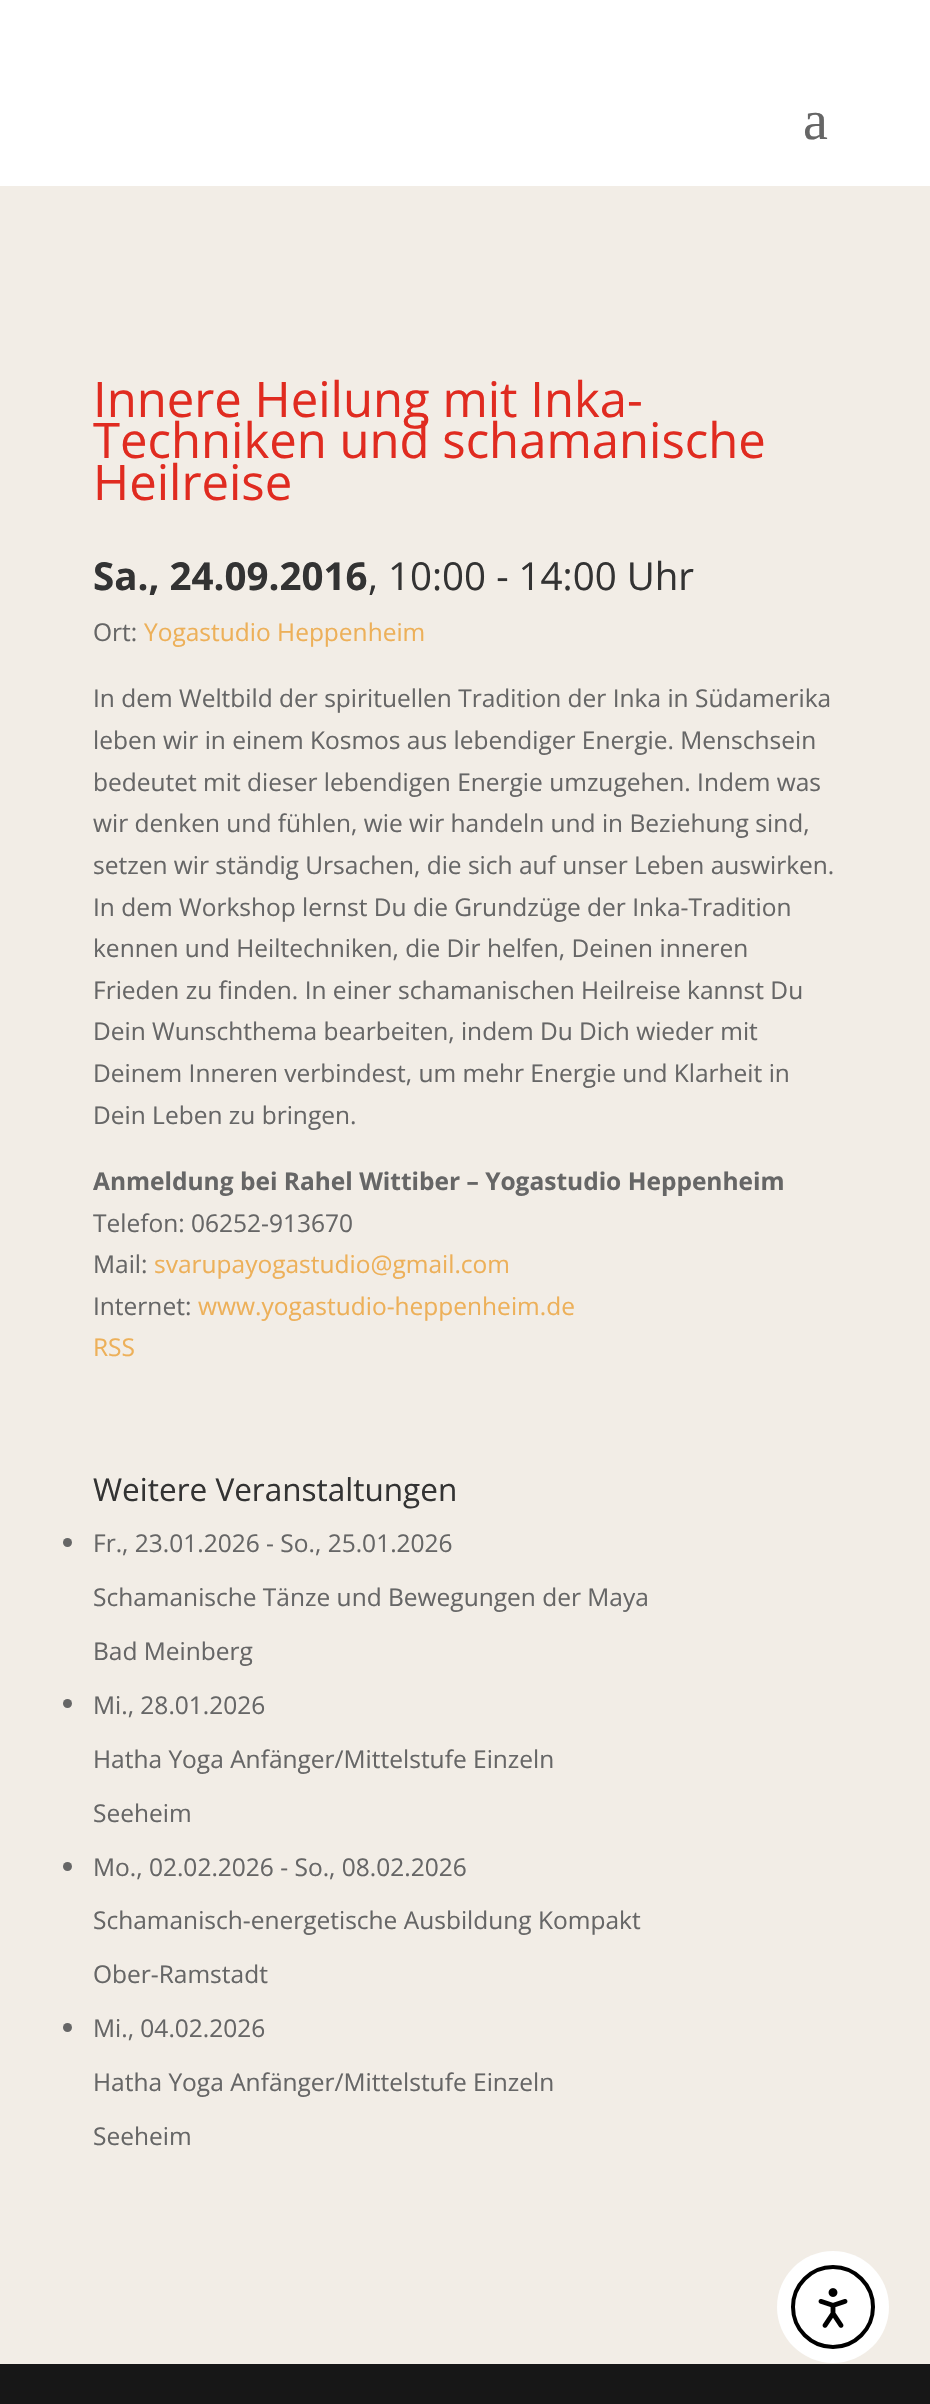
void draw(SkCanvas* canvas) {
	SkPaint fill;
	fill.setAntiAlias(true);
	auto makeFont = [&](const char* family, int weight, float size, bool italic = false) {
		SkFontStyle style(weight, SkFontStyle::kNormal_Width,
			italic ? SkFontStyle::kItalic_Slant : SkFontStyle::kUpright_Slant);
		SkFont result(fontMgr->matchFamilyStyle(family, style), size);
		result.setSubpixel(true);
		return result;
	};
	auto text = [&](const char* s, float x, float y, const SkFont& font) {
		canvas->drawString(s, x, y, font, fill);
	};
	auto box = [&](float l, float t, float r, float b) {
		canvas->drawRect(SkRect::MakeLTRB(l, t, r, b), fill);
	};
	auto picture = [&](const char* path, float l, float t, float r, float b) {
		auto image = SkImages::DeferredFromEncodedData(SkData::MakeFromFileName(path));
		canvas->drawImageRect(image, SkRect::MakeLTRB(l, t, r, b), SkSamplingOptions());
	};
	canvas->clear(0xFF171717);
	fill.setColor(0xFFFFFFFF);
	box(0, 0, 930, 186);
	fill.setColor(0xFFF2EDE6);
	box(0, 186, 930, 2364);
	fill.setColor(0xFF666666);
	canvas->drawCircle(67.5f, 1542.5f, 4.5f, fill);
	canvas->drawCircle(67.5f, 1703.5f, 4.5f, fill);
	canvas->drawCircle(67.5f, 1866.5f, 4.5f, fill);
	canvas->drawCircle(67.5f, 2027.5f, 4.5f, fill);
	fill.setColor(0xFFFFFFFF);
	canvas->drawCircle(833, 2307, 56, fill);
	fill.setStyle(SkPaint::kStroke_Style);
	fill.setStrokeWidth(4);
	fill.setColor(0xFF000000);
	canvas->drawCircle(833, 2307, 40, fill);
	picture("image0.png", 818, 2288, 848, 2328);
	auto font1 = makeFont("Liberation Serif", 400, 56);
	fill.setStyle(SkPaint::kFill_Style);
	fill.setColor(0xFF666666);
	text("a", 803, 139, font1);
	auto font2 = makeFont("Open Sans", 400, 49);
	fill.setColor(0xFFE02B20);
	text("Innere Heilung mit Inka-", 93, 417, font2);
	text("Techniken und schamanische", 93, 458, font2);
	text("Heilreise", 93, 500, font2);
	auto font3 = makeFont("Open Sans", 700, 38.5f);
	fill.setColor(0xFF333333);
	text("Sa., 24.09.2016", 93, 590, font3);
	auto font4 = makeFont("Open Sans", 400, 38.5f);
	text(", 10:00 - 14:00 Uhr", 368, 590, font4);
	auto font5 = makeFont("Open Sans", 400, 24.5f);
	fill.setColor(0xFF666666);
	text("Ort:", 93, 641, font5);
	fill.setColor(0xFFEDB059);
	text("Yogastudio Heppenheim", 144, 641, font5);
	fill.setColor(0xFF666666);
	text("In dem Weltbild der spirituellen Tradition der Inka in Südamerika", 93, 707, font5);
	text("leben wir in einem Kosmos aus lebendiger Energie. Menschsein", 93, 749, font5);
	text("bedeutet mit dieser lebendigen Energie umzugehen. Indem was", 93, 791, font5);
	text("wir denken und fühlen, wie wir handeln und in Beziehung sind,", 93, 832, font5);
	text("setzen wir ständig Ursachen, die sich auf unser Leben auswirken.", 93, 874, font5);
	text("In dem Workshop lernst Du die Grundzüge der Inka-Tradition", 93, 916, font5);
	text("kennen und Heiltechniken, die Dir helfen, Deinen inneren", 93, 957, font5);
	text("Frieden zu finden. In einer schamanischen Heilreise kannst Du", 93, 999, font5);
	text("Dein Wunschthema bearbeiten, indem Du Dich wieder mit", 93, 1040, font5);
	text("Deinem Inneren verbindest, um mehr Energie und Klarheit in", 93, 1082, font5);
	text("Dein Leben zu bringen.", 93, 1124, font5);
	auto font6 = makeFont("Open Sans", 700, 24.5f);
	text("Anmeldung bei Rahel Wittiber – Yogastudio Heppenheim", 93, 1190, font6);
	text("Telefon: 06252-913670", 93, 1232, font5);
	text("Mail:", 93, 1273, font5);
	fill.setColor(0xFFEDB059);
	text("svarupayogastudio@gmail.com", 154, 1273, font5);
	fill.setColor(0xFF666666);
	text("Internet:", 93, 1315, font5);
	fill.setColor(0xFFEDB059);
	text("www.yogastudio-heppenheim.de", 198, 1315, font5);
	text("RSS", 93, 1356, font5);
	auto font7 = makeFont("Open Sans", 400, 31.5f);
	fill.setColor(0xFF333333);
	text("Weitere Veranstaltungen", 93, 1501, font7);
	fill.setColor(0xFF666666);
	text("Fr., 23.01.2026 - So., 25.01.2026", 93, 1552, font5);
	text("Schamanische Tänze und Bewegungen der Maya", 93, 1606, font5);
	text("Bad Meinberg", 93, 1660, font5);
	text("Mi., 28.01.2026", 93, 1714, font5);
	text("Hatha Yoga Anfänger/Mittelstufe Einzeln", 93, 1768, font5);
	text("Seeheim", 93, 1822, font5);
	text("Mo., 02.02.2026 - So., 08.02.2026", 93, 1876, font5);
	text("Schamanisch-energetische Ausbildung Kompakt", 93, 1929, font5);
	text("Ober-Ramstadt", 93, 1983, font5);
	text("Mi., 04.02.2026", 93, 2037, font5);
	text("Hatha Yoga Anfänger/Mittelstufe Einzeln", 93, 2091, font5);
	text("Seeheim", 93, 2145, font5);
}
